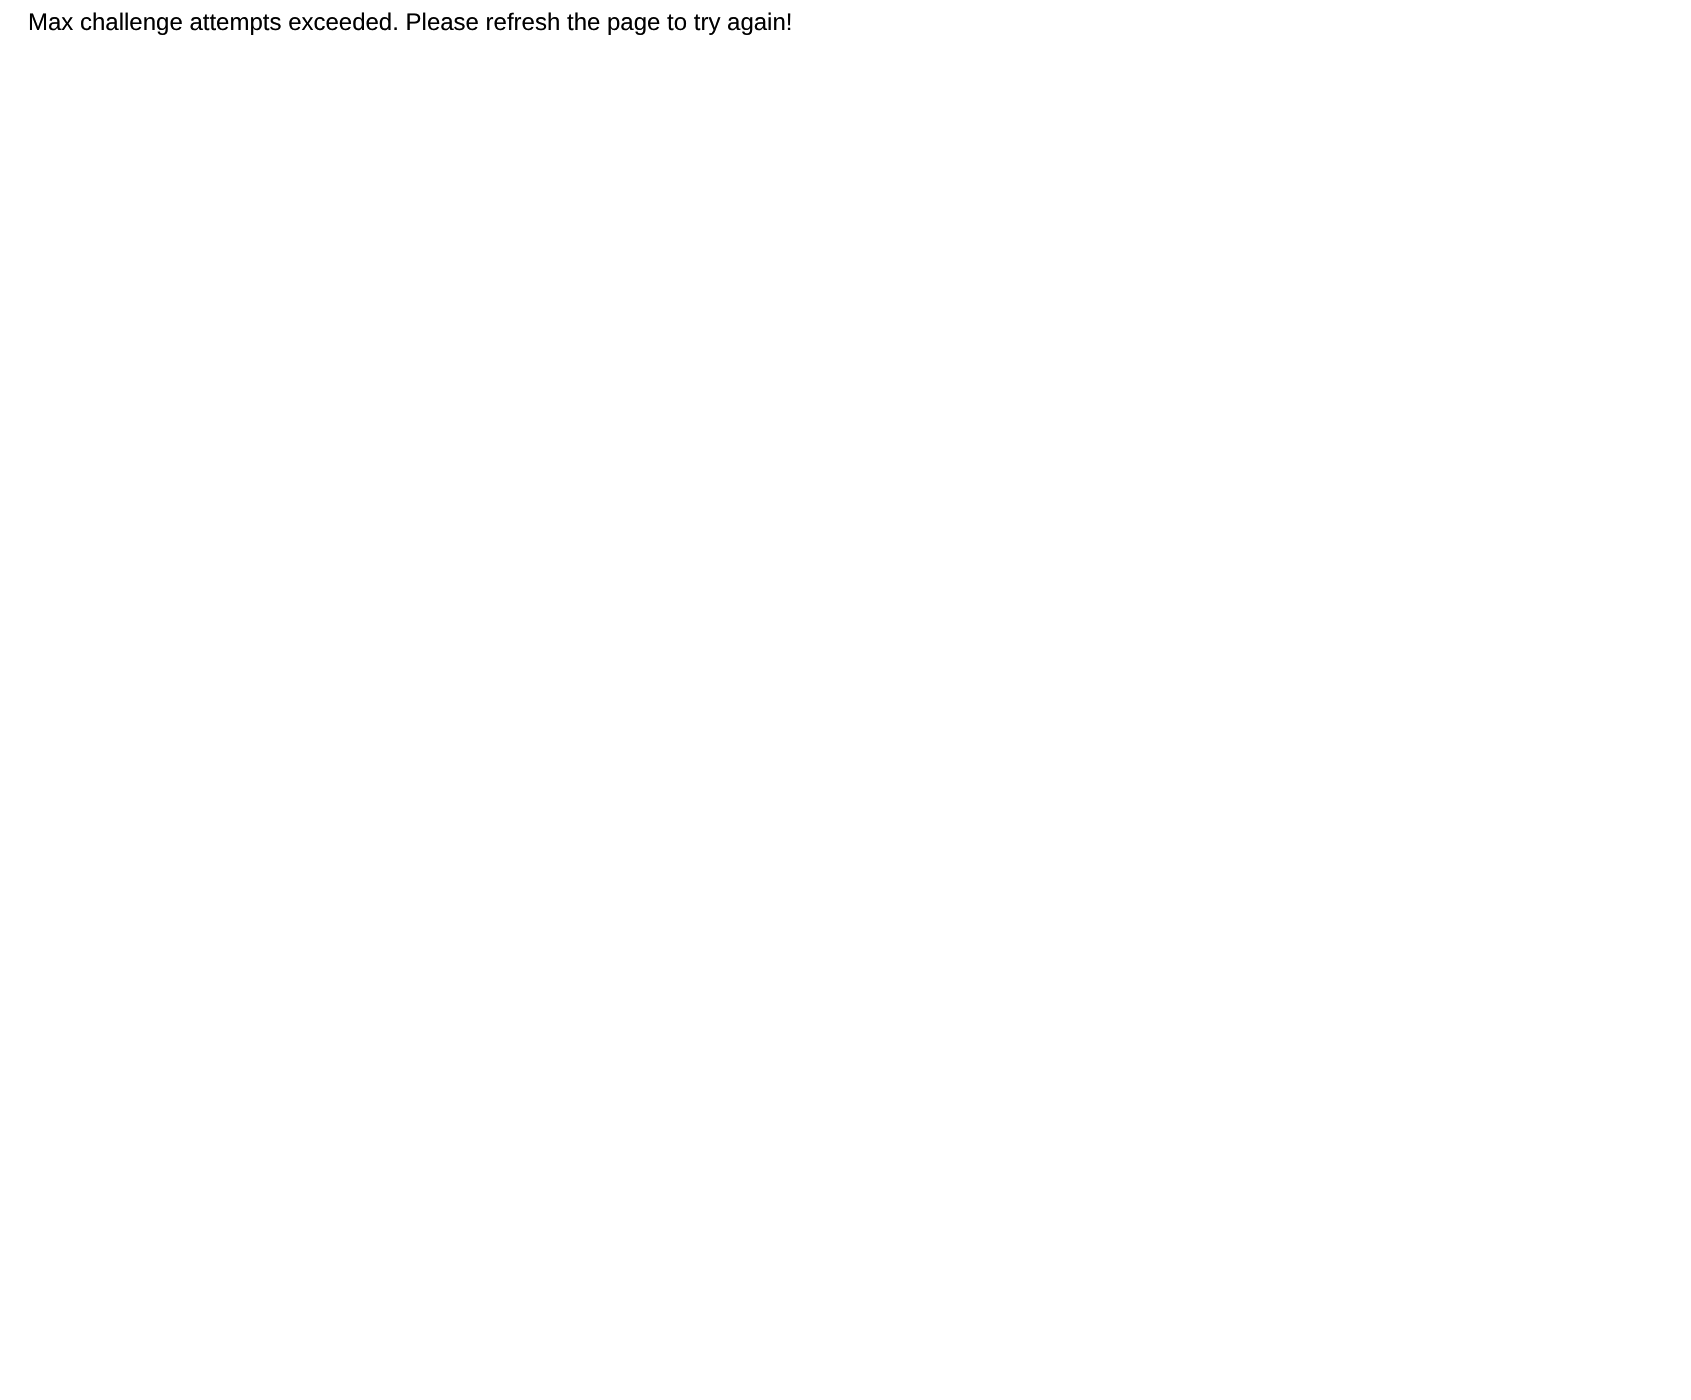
void draw(SkCanvas* canvas) {
	SkPaint fill;
	fill.setAntiAlias(true);
	auto makeFont = [&](const char* family, int weight, float size, bool italic = false) {
		SkFontStyle style(weight, SkFontStyle::kNormal_Width,
			italic ? SkFontStyle::kItalic_Slant : SkFontStyle::kUpright_Slant);
		SkFont result(fontMgr->matchFamilyStyle(family, style), size);
		result.setSubpixel(true);
		return result;
	};
	auto text = [&](const char* s, float x, float y, const SkFont& font) {
		canvas->drawString(s, x, y, font, fill);
	};
	canvas->clear(0xFFFFFFFF);
	auto font1 = makeFont("Liberation Sans", 400, 24);
	fill.setColor(0xFF000000);
	text("Max challenge attempts exceeded. Please refresh the page to try again!", 28, 30, font1);
}
